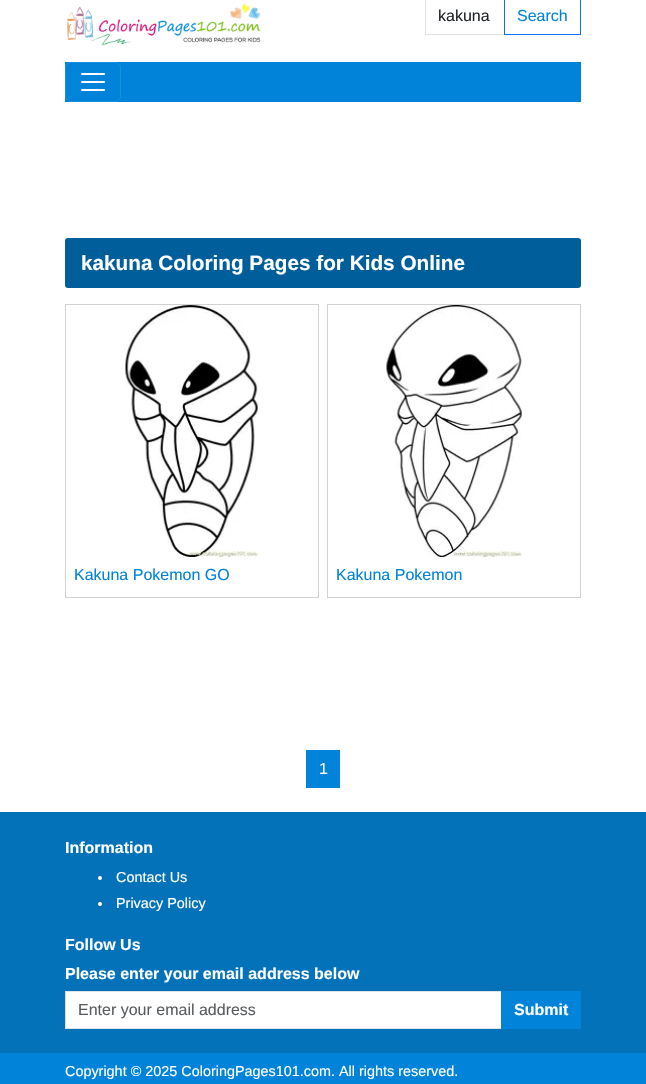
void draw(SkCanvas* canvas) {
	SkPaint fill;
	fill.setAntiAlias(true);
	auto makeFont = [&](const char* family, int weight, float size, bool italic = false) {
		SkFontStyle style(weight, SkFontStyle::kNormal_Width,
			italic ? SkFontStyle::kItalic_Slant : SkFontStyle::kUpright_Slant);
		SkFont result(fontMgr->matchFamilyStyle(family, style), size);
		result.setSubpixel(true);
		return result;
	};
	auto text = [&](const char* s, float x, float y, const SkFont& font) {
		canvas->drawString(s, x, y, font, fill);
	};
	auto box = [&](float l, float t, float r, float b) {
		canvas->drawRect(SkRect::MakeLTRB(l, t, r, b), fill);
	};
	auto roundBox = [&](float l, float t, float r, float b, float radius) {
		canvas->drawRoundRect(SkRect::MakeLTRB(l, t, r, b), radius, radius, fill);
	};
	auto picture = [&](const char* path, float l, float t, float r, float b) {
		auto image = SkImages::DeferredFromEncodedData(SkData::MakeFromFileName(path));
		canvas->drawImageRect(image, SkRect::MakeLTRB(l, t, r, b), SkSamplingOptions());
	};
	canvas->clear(0xFFFFFFFF);
	picture("image0.png", 67, 3, 261, 46);
	fill.setStyle(SkPaint::kStroke_Style);
	fill.setStrokeWidth(1);
	fill.setColor(0xFFDEE2E6);
	canvas->drawRect(SkRect::MakeLTRB(425.5f, -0.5f, 504.5f, 34.5f), fill);
	fill.setColor(0xFF0D6EFD);
	canvas->drawRect(SkRect::MakeLTRB(504.5f, -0.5f, 580.5f, 34.5f), fill);
	fill.setStyle(SkPaint::kFill_Style);
	fill.setColor(0xFF0083D8);
	box(65, 62, 581, 102);
	fill.setStyle(SkPaint::kStroke_Style);
	fill.setColor(0xFF1A8FDC);
	canvas->drawRoundRect(SkRect::MakeLTRB(65.5f, 62.5f, 120.5f, 101.5f), 5.5f, 5.5f, fill);
	picture("image1.png", 81, 73, 105, 91);
	fill.setStyle(SkPaint::kFill_Style);
	fill.setColor(0xFF005E9B);
	roundBox(65, 238, 581, 288, 3);
	fill.setStyle(SkPaint::kStroke_Style);
	fill.setColor(0xFFD2D2D2);
	canvas->drawRect(SkRect::MakeLTRB(65.5f, 304.5f, 318.5f, 597.5f), fill);
	picture("image2.png", 125, 305, 262, 557);
	canvas->drawRect(SkRect::MakeLTRB(327.5f, 304.5f, 580.5f, 597.5f), fill);
	picture("image3.png", 386, 305, 523, 557);
	fill.setStyle(SkPaint::kFill_Style);
	fill.setColor(0xFF0083D8);
	box(306, 750, 340, 788);
	fill.setColor(0xFF0372B8);
	box(0, 812, 646, 1053);
	fill.setColor(0xFFFFFFFF);
	canvas->drawCircle(100, 878, 2, fill);
	canvas->drawCircle(100, 904, 2, fill);
	canvas->drawRect(SkRect::MakeLTRB(65.5f, 991.5f, 501.5f, 1028.5f), fill);
	fill.setStyle(SkPaint::kStroke_Style);
	fill.setColor(0xFFDEE2E6);
	canvas->drawRect(SkRect::MakeLTRB(65.5f, 991.5f, 501.5f, 1028.5f), fill);
	fill.setStyle(SkPaint::kFill_Style);
	fill.setColor(0xFF0083D8);
	box(501, 991, 581, 1029);
	box(0, 1053, 646, 1084);
	auto font1 = makeFont("Liberation Sans", 400, 16);
	fill.setColor(0xFF212529);
	text("kakuna", 438, 21, font1);
	fill.setColor(0xFF0083D8);
	text("Search", 517, 21, font1);
	auto font2 = makeFont("Liberation Sans", 700, 20.75f);
	fill.setColor(0xFFFFFFFF);
	text("kakuna Coloring Pages for Kids Online", 81, 270, font2);
	fill.setColor(0xFF0083D8);
	text("Kakuna Pokemon GO", 74, 580, font1);
	text("Kakuna Pokemon", 336, 580, font1);
	fill.setColor(0xFFFFFFFF);
	text("1", 319, 774, font1);
	auto font3 = makeFont("Liberation Sans", 700, 16);
	text("Information", 65, 853, font3);
	auto font4 = makeFont("Liberation Sans", 400, 14.4f);
	text("Contact Us", 116, 882, font4);
	text("Privacy Policy", 116, 908, font4);
	text("Follow Us", 65, 950, font3);
	text("Please enter your email address below", 65, 979, font3);
	fill.setColor(0xFF595C5F);
	text("Enter your email address", 78, 1015, font1);
	fill.setColor(0xFFFFFFFF);
	text("Submit", 514, 1015, font3);
	text("Copyright © 2025 ColoringPages101.com. All rights reserved.", 65, 1076, font4);
}
